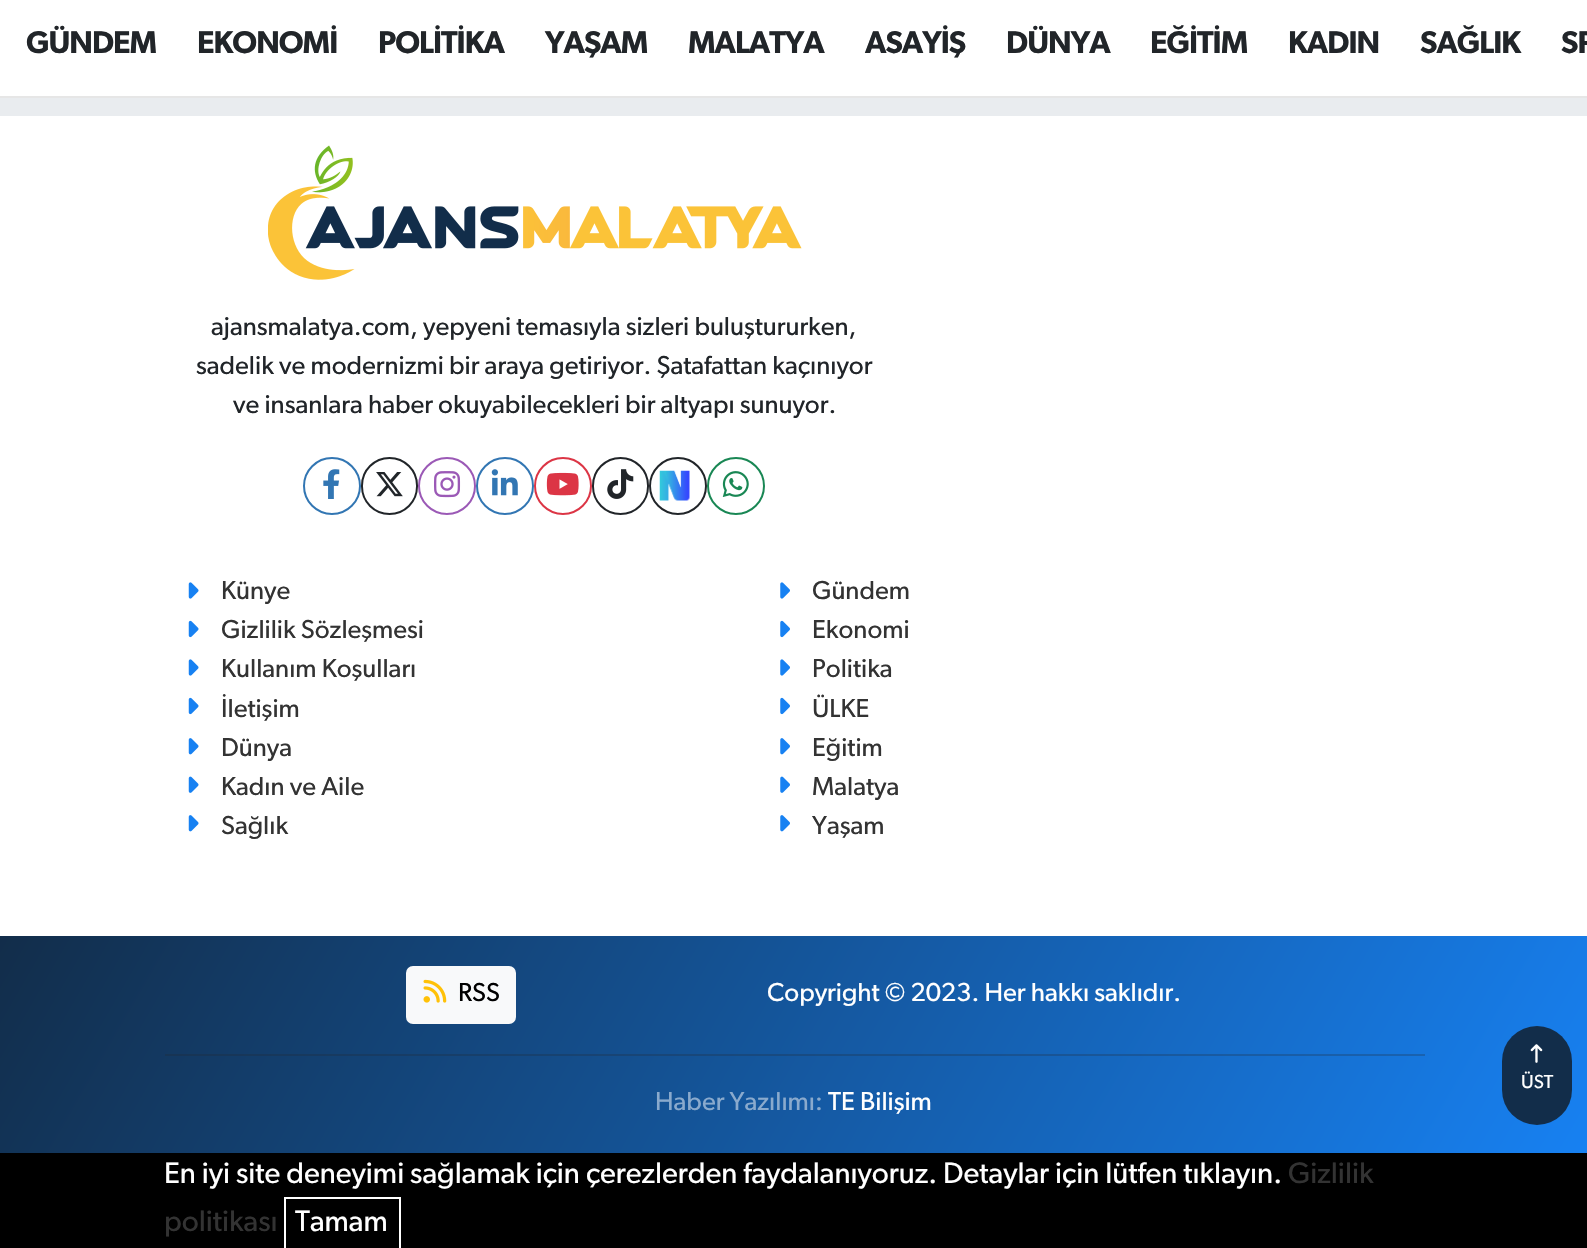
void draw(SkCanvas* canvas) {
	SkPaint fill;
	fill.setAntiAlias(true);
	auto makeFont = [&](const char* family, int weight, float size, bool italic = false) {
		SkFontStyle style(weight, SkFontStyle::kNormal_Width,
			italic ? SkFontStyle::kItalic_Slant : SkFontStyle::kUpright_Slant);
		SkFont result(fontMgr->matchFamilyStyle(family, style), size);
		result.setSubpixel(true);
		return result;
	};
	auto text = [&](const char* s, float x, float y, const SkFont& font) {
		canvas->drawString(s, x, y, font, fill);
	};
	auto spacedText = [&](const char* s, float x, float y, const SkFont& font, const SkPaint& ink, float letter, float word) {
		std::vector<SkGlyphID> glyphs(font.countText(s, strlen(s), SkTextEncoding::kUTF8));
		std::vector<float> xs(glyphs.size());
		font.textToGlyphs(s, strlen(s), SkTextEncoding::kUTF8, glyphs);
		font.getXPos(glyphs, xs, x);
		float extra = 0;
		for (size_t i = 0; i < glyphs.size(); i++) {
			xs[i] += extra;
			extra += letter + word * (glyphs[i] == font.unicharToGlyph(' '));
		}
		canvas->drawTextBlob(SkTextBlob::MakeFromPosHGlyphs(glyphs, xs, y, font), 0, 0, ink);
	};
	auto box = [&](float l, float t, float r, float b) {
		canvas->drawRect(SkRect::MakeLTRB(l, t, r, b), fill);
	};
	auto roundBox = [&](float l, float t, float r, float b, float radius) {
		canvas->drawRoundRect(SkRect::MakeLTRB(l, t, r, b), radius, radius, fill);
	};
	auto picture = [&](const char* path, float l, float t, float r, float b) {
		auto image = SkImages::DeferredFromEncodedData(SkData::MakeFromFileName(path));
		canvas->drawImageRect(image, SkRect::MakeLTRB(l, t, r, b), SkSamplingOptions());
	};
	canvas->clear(0xFFE9ECEF);
	fill.setColor(0xFFFFFFFF);
	box(0, 0, 1587, 96);
	fill.setColor(0xFFE6E6E6);
	box(0, 96, 1587, 98);
	fill.setColor(0xFFFFFFFF);
	box(0, 116, 1587, 936);
	picture("image0.png", 268, 145, 802, 280);
	fill.setStyle(SkPaint::kStroke_Style);
	fill.setStrokeWidth(2);
	fill.setColor(0xFF3276B3);
	canvas->drawCircle(332, 486, 28, fill);
	picture("image1.png", 323, 469, 340, 499);
	fill.setColor(0xFF212529);
	canvas->drawRoundRect(SkRect::MakeLTRB(362, 458, 417, 514), 27.5f, 27.5f, fill);
	picture("image2.png", 376, 472, 403, 497);
	fill.setColor(0xFF9B59B6);
	canvas->drawCircle(447, 486, 28, fill);
	picture("image3.png", 434, 471, 461, 498);
	fill.setColor(0xFF3276B3);
	canvas->drawCircle(505, 486, 28, fill);
	picture("image4.png", 491, 469, 518, 496);
	fill.setColor(0xFFDC3545);
	canvas->drawCircle(563, 486, 28, fill);
	picture("image5.png", 546, 472, 579, 496);
	fill.setColor(0xFF212529);
	canvas->drawRoundRect(SkRect::MakeLTRB(593, 458, 648, 514), 27.5f, 27.5f, fill);
	picture("image6.png", 607, 469, 634, 499);
	canvas->drawCircle(678, 486, 28, fill);
	picture("image7.png", 659, 470, 690, 501);
	fill.setColor(0xFF198754);
	canvas->drawCircle(736, 486, 28, fill);
	picture("image8.png", 722, 471, 749, 497);
	picture("image9.png", 188, 582, 199, 599);
	picture("image10.png", 780, 582, 790, 599);
	picture("image11.png", 188, 620, 199, 638);
	picture("image12.png", 780, 620, 790, 638);
	picture("image9.png", 188, 659, 199, 676);
	picture("image10.png", 780, 659, 790, 676);
	picture("image11.png", 188, 697, 199, 715);
	picture("image12.png", 780, 697, 790, 715);
	picture("image13.png", 188, 738, 199, 755);
	picture("image14.png", 780, 738, 790, 755);
	picture("image15.png", 188, 776, 199, 793);
	picture("image16.png", 780, 776, 790, 793);
	picture("image13.png", 188, 815, 199, 832);
	picture("image14.png", 780, 815, 790, 832);
	fill.setStyle(SkPaint::kFill_Style);
	{
		const SkColor colors[] = {0xFF122D4A, 0xFF1781F2};
		const float stops[] = {0, 1};
		const SkPoint ends[] = {{151, 674}, {1436, 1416}};
		fill.setShader(SkGradientShader::MakeLinear(ends, colors, stops, 2, SkTileMode::kClamp));
		fill.setAlpha(255);
	}
	box(0, 936, 1587, 1153);
	{
		const SkColor colors[] = {0xFF162B42, 0xFF1A6AC0};
		const float stops[] = {0, 1};
		const SkPoint ends[] = {{151, 674}, {1436, 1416}};
		fill.setShader(SkGradientShader::MakeLinear(ends, colors, stops, 2, SkTileMode::kClamp));
		fill.setAlpha(255);
	}
	box(165, 1054, 1425, 1056);
	fill.setShader(nullptr);
	fill.setColor(0xFFF8F9FA);
	canvas->drawRoundRect(SkRect::MakeLTRB(407, 967, 515, 1023), 6, 6, fill);
	fill.setStyle(SkPaint::kStroke_Style);
	canvas->drawRoundRect(SkRect::MakeLTRB(407, 967, 515, 1023), 6, 6, fill);
	picture("image17.png", 423, 979, 447, 1003);
	fill.setStyle(SkPaint::kFill_Style);
	fill.setColor(0xFF122D4A);
	roundBox(1502, 1026, 1572, 1125, 35);
	picture("image18.png", 1530, 1044, 1543, 1063);
	fill.setColor(0xFF000000);
	box(0, 1153, 1587, 1248);
	fill.setStyle(SkPaint::kStroke_Style);
	fill.setColor(0xFFFFFFFF);
	canvas->drawRect(SkRect::MakeLTRB(285, 1198, 400, 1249), fill);
	auto font1 = makeFont("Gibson", 600, 31.5f);
	fill.setStyle(SkPaint::kFill_Style);
	fill.setColor(0xFF212529);
	spacedText("GÜNDEM", 26, 53, font1, fill, -1, 0);
	spacedText("EKONOMİ", 197, 53, font1, fill, -1, 0);
	spacedText("POLİTİKA", 378, 53, font1, fill, -1, 0);
	spacedText("YAŞAM", 545, 53, font1, fill, -1, 0);
	spacedText("MALATYA", 688, 53, font1, fill, -1, 0);
	spacedText("ASAYİŞ", 865, 53, font1, fill, -1, 0);
	spacedText("DÜNYA", 1006, 53, font1, fill, -1, 0);
	spacedText("EĞİTİM", 1150, 53, font1, fill, -1, 0);
	spacedText("KADIN", 1288, 53, font1, fill, -1, 0);
	spacedText("SAĞLIK", 1420, 53, font1, fill, -1, 0);
	spacedText("SP", 1561, 53, font1, fill, -1, 0);
	auto font2 = makeFont("Gibson", 400, 26);
	text("ajansmalatya.com, yepyeni temasıyla sizleri buluştururken,", 211, 335, font2);
	text("sadelik ve modernizmi bir araya getiriyor. Şatafattan kaçınıyor", 196, 374, font2);
	text("ve insanlara haber okuyabilecekleri bir altyapı sunuyor.", 233, 413, font2);
	fill.setColor(0xFF333333);
	text("Künye", 221, 599, font2);
	text("Gündem", 812, 599, font2);
	text("Gizlilik Sözleşmesi", 221, 638, font2);
	text("Ekonomi", 812, 638, font2);
	text("Kullanım Koşulları", 221, 677, font2);
	text("Politika", 812, 677, font2);
	text("İletişim", 221, 717, font2);
	text("ÜLKE", 812, 717, font2);
	text("Dünya", 221, 756, font2);
	text("Eğitim", 812, 756, font2);
	text("Kadın ve Aile", 221, 795, font2);
	text("Malatya", 812, 795, font2);
	text("Sağlık", 221, 834, font2);
	text("Yaşam", 812, 834, font2);
	fill.setColor(0xFF000000);
	text("RSS", 458, 1001, font2);
	fill.setColor(0xFFFFFFFF);
	text("Copyright © 2023. Her hakkı saklıdır.", 767, 1001, font2);
	fill.setColor(0xFF8AAACD);
	text("Haber Yazılımı:", 655, 1110, font2);
	fill.setColor(0xFFFFFFFF);
	text("TE Bilişim", 828, 1110, font2);
	auto font3 = makeFont("Gibson", 400, 19);
	text("ÜST", 1521, 1088, font3);
	auto font4 = makeFont("Gibson", 400, 29.75f);
	text("En iyi site deneyimi sağlamak için çerezlerden faydalanıyoruz. Detaylar için lütfen tıklayın.", 164, 1183, font4);
	fill.setColor(0xFF333333);
	text("Gizlilik", 1288, 1183, font4);
	text("politikası", 164, 1231, font4);
	fill.setColor(0xFFFFFFFF);
	text("Tamam", 295, 1231, font4);
}
